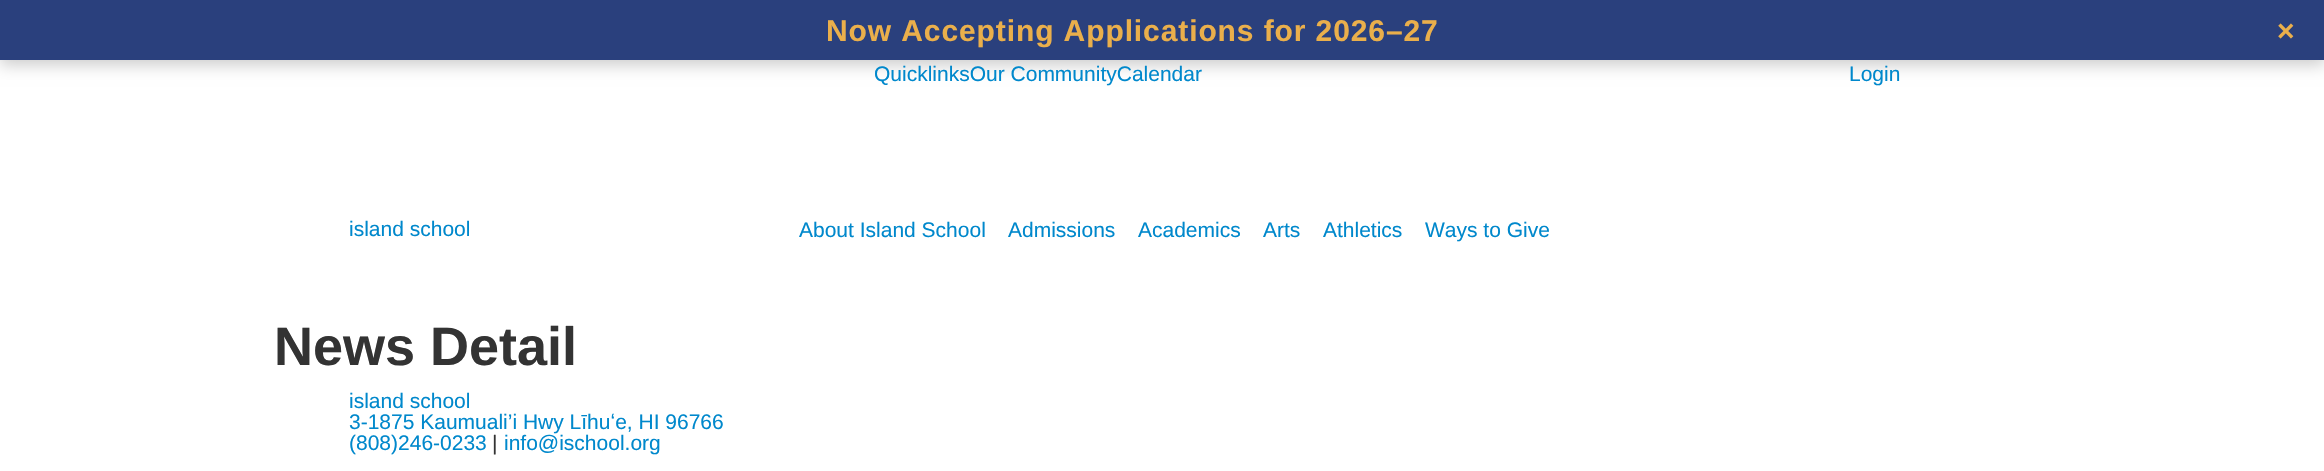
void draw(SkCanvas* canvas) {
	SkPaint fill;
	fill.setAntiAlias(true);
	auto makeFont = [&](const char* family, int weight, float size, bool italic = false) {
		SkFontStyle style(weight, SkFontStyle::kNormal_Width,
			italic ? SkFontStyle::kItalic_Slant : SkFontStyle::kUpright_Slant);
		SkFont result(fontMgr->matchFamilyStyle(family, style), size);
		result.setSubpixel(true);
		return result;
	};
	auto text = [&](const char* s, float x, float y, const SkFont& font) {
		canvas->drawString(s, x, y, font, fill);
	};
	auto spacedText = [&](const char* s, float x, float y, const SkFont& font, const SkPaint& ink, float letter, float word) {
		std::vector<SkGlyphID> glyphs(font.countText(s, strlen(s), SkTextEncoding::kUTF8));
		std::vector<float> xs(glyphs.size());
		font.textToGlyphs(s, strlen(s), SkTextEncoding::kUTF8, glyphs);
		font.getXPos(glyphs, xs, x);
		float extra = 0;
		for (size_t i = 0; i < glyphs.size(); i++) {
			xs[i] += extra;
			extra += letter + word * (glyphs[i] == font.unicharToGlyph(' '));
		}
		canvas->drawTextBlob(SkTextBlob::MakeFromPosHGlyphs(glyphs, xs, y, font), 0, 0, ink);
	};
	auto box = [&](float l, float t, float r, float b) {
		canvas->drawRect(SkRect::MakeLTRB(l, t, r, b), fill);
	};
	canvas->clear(0xFFFFFFFF);
	fill.setColor(0x33000000);
	fill.setMaskFilter(SkMaskFilter::MakeBlur(kNormal_SkBlurStyle, 7.5f));
	canvas->drawRect(SkRect::MakeLTRB(0, 5, 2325, 65), fill);
	fill.setMaskFilter(nullptr);
	fill.setColor(0xFF2A407D);
	box(0, 0, 2324, 60);
	auto font1 = makeFont("Liberation Sans", 700, 30);
	fill.setColor(0xFFEAAF4B);
	spacedText("Now Accepting Applications for 2026–27", 826, 41, font1, fill, 0.9f, 0);
	text("×", 2277, 41, font1);
	auto font2 = makeFont("Liberation Sans", 400, 21);
	fill.setColor(0xFF0088CC);
	text("QuicklinksOur CommunityCalendar", 874, 81, font2);
	text("Login", 1849, 81, font2);
	text("island school", 349, 236, font2);
	text("About Island School", 799, 237, font2);
	text("Admissions", 1008, 237, font2);
	text("Academics", 1138, 237, font2);
	text("Arts", 1263, 237, font2);
	text("Athletics", 1323, 237, font2);
	text("Ways to Give", 1425, 237, font2);
	auto font3 = makeFont("Liberation Sans", 700, 54);
	fill.setColor(0xFF333333);
	text("News Detail", 274, 365, font3);
	fill.setColor(0xFF0088CC);
	text("island school", 349, 408, font2);
	text("3-1875 Kaumuali’i Hwy Līhuʻe, HI 96766", 349, 429, font2);
	text("(808)246-0233", 349, 450, font2);
	fill.setColor(0xFF333333);
	text("|", 492, 450, font2);
	fill.setColor(0xFF0088CC);
	text("info@ischool.org", 504, 450, font2);
}
